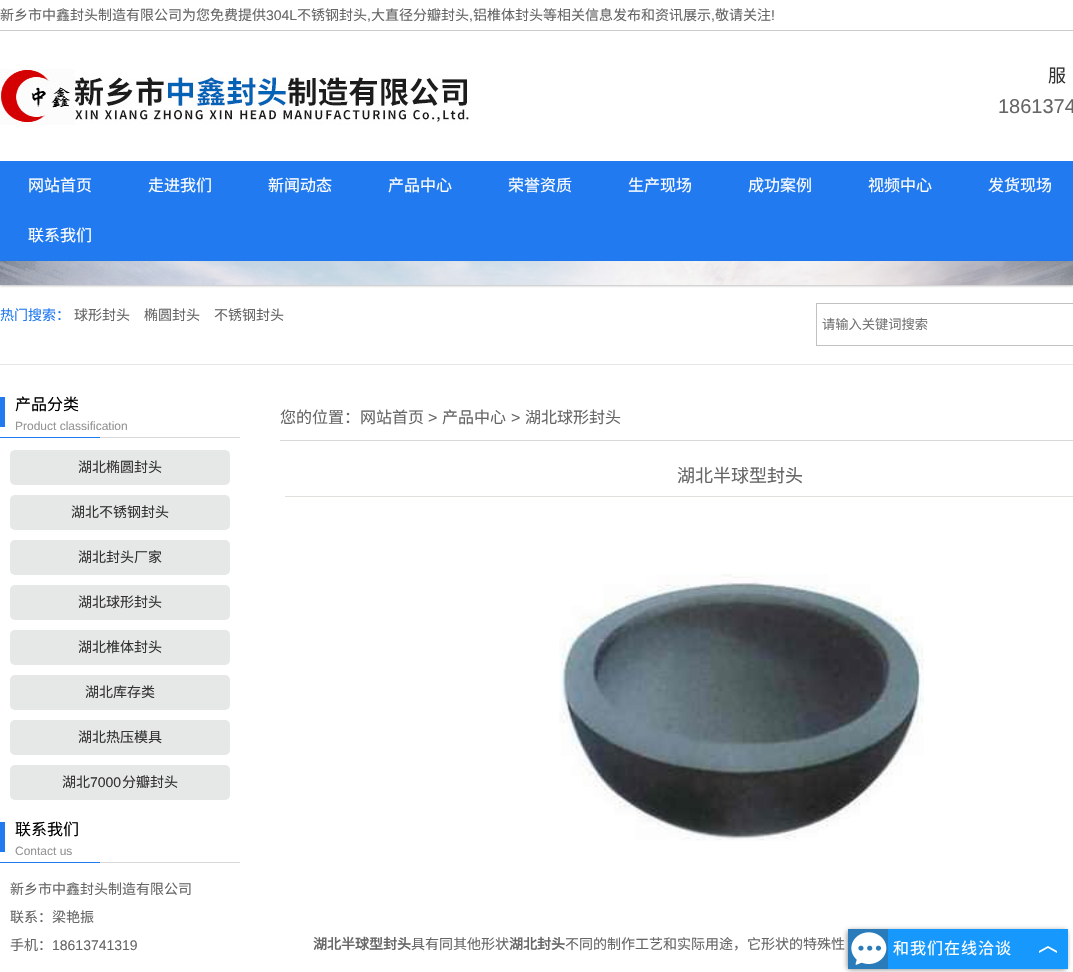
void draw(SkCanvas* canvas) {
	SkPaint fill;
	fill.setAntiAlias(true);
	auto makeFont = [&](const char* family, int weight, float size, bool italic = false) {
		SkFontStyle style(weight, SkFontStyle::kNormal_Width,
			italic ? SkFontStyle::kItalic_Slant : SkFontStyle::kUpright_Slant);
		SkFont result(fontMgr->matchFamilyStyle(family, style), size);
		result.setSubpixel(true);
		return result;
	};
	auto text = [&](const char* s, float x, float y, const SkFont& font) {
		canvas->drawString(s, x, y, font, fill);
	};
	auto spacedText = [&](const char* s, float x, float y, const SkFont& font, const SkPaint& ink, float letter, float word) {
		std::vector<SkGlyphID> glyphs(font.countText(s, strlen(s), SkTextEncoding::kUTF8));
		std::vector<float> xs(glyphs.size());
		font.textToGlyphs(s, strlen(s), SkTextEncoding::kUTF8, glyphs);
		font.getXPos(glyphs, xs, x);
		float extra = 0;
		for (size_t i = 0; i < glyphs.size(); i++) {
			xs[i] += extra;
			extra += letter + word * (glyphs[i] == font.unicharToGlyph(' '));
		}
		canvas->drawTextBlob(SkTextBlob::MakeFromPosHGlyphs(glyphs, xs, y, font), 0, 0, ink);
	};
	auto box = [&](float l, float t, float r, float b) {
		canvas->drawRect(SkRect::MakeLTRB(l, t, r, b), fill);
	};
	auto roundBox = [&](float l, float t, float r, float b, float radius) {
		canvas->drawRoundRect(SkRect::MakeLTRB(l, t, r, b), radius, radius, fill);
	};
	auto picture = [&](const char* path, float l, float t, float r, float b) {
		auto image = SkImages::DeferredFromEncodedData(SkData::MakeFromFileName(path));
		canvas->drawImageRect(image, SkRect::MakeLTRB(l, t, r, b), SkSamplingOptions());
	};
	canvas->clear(0xFFFFFFFF);
	fill.setColor(0xFFCCCCCC);
	box(0, 30, 1073, 31);
	picture("image0.png", 0, 69, 469, 125);
	fill.setColor(0xFF227AF1);
	box(0, 161, 1073, 261);
	fill.setColor(0x40000000);
	fill.setMaskFilter(SkMaskFilter::MakeBlur(kNormal_SkBlurStyle, 1));
	canvas->drawRect(SkRect::MakeLTRB(0, 262, 1073, 286), fill);
	fill.setMaskFilter(nullptr);
	picture("image1.png", 0, 261, 1073, 285);
	fill.setColor(0xFFE5E5E5);
	box(0, 364, 1073, 365);
	fill.setStyle(SkPaint::kStroke_Style);
	fill.setStrokeWidth(1);
	fill.setColor(0xFFC1C1C1);
	canvas->drawRect(SkRect::MakeLTRB(816.5f, 303.5f, 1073.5f, 345.5f), fill);
	picture("image2.png", 0, 397, 240, 438);
	fill.setStyle(SkPaint::kFill_Style);
	fill.setColor(0xFFE6E8E7);
	roundBox(10, 450, 230, 485, 5);
	roundBox(10, 495, 230, 530, 5);
	roundBox(10, 540, 230, 575, 5);
	roundBox(10, 585, 230, 620, 5);
	roundBox(10, 630, 230, 665, 5);
	roundBox(10, 675, 230, 710, 5);
	roundBox(10, 720, 230, 755, 5);
	roundBox(10, 765, 230, 800, 5);
	picture("image2.png", 0, 822, 240, 863);
	fill.setColor(0xFFD8D8D8);
	box(280, 440, 1073, 441);
	fill.setColor(0xFFE0E1DC);
	box(285, 496, 1073, 497);
	picture("image3.png", 559, 574, 924, 841);
	fill.setColor(0x66000000);
	fill.setMaskFilter(SkMaskFilter::MakeBlur(kNormal_SkBlurStyle, 2.5f));
	canvas->drawRoundRect(SkRect::MakeLTRB(847, 930, 1067, 970), 4, 4, fill);
	fill.setMaskFilter(nullptr);
	fill.setColor(0xFF1798FC);
	box(888, 929, 1068, 969);
	fill.setColor(0xFF2A7BB9);
	box(848, 929, 888, 969);
	picture("image4.png", 851, 932, 887, 965);
	picture("image5.png", 1039, 946, 1057, 953);
	auto font1 = makeFont("Noto Sans CJK SC", 400, 14);
	fill.setColor(0xFF666666);
	text("新乡市中鑫封头制造有限公司为您免费提供", 0, 20, font1);
	auto font2 = makeFont("Liberation Sans", 400, 14);
	text("304L", 266, 20, font2);
	text("不锈钢封头", 297, 20, font1);
	text(",", 367, 20, font2);
	text("大直径分瓣封头", 371, 20, font1);
	text(",", 469, 20, font2);
	text("铝椎体封头等相关信息发布和资讯展示", 473, 20, font1);
	text(",", 711, 20, font2);
	text("敬请关注", 715, 20, font1);
	text("!", 771, 20, font2);
	auto font3 = makeFont("Noto Sans CJK SC", 400, 18);
	fill.setColor(0xFF333333);
	text("服", 1048, 82, font3);
	auto font4 = makeFont("Liberation Sans", 400, 20);
	fill.setColor(0xFF666666);
	text("1861374", 998, 113, font4);
	auto font5 = makeFont("Noto Sans CJK SC", 400, 16);
	fill.setColor(0xFFFFFFFF);
	text("网站首页", 28, 191, font5);
	text("走进我们", 148, 191, font5);
	text("新闻动态", 268, 191, font5);
	text("产品中心", 388, 191, font5);
	text("荣誉资质", 508, 191, font5);
	text("生产现场", 628, 191, font5);
	text("成功案例", 748, 191, font5);
	text("视频中心", 868, 191, font5);
	text("发货现场", 988, 191, font5);
	text("联系我们", 28, 241, font5);
	fill.setColor(0xFF227AF1);
	text("热门搜索：", 0, 320, font1);
	fill.setColor(0xFF666666);
	text("球形封头", 74, 320, font1);
	text("椭圆封头", 144, 320, font1);
	text("不锈钢封头", 214, 320, font1);
	auto font6 = makeFont("Noto Sans CJK SC", 400, 13.25f);
	fill.setColor(0xFF757575);
	text("请输入关键词搜索", 822, 329, font6);
	fill.setColor(0xFF000000);
	text("产品分类", 15, 410, font5);
	auto font7 = makeFont("Liberation Sans", 400, 12);
	fill.setColor(0xFF949494);
	text("Product classification", 15, 430, font7);
	fill.setColor(0xFF333333);
	text("湖北椭圆封头", 78, 472, font1);
	text("湖北不锈钢封头", 71, 517, font1);
	text("湖北封头厂家", 78, 562, font1);
	text("湖北球形封头", 78, 607, font1);
	text("湖北椎体封头", 78, 652, font1);
	text("湖北库存类", 85, 697, font1);
	text("湖北热压模具", 78, 742, font1);
	text("湖北", 62, 787, font1);
	text("7000", 90, 787, font2);
	text("分瓣封头", 122, 787, font1);
	fill.setColor(0xFF000000);
	text("联系我们", 15, 835, font5);
	fill.setColor(0xFF949494);
	text("Contact us", 15, 855, font7);
	fill.setColor(0xFF666666);
	text("新乡市中鑫封头制造有限公司", 10, 894, font1);
	text("联系：梁艳振", 10, 922, font1);
	text("手机：", 10, 950, font1);
	text("18613741319", 52, 950, font2);
	text("您的位置：网站首页", 280, 423, font5);
	auto font8 = makeFont("Liberation Sans", 400, 16);
	text(">", 428, 423, font8);
	text("产品中心", 442, 423, font5);
	text(">", 511, 423, font8);
	text("湖北球形封头", 525, 423, font5);
	text("湖北半球型封头", 677, 482, font3);
	auto font9 = makeFont("Noto Sans CJK SC", 700, 14);
	text("湖北半球型封头", 313, 949, font9);
	text("具有同其他形状", 411, 949, font1);
	text("湖北封头", 509, 949, font9);
	text("不同的制作工艺和实际用途，它形状的特殊性", 565, 949, font1);
	fill.setColor(0xFFFFFFFF);
	spacedText("和我们在线洽谈", 893, 954, font5, fill, 1, 0);
}
